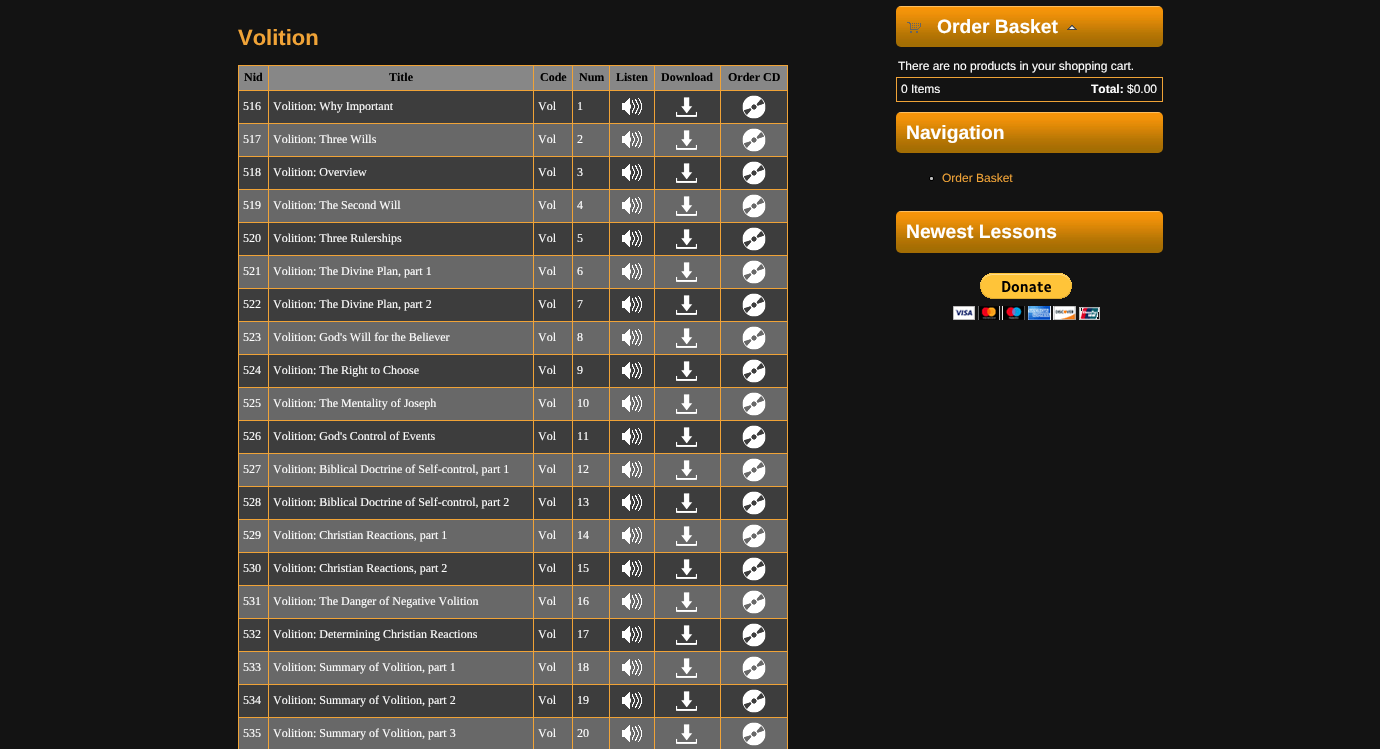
void draw(SkCanvas* canvas) {
	SkPaint fill;
	fill.setAntiAlias(true);
	auto makeFont = [&](const char* family, int weight, float size, bool italic = false) {
		SkFontStyle style(weight, SkFontStyle::kNormal_Width,
			italic ? SkFontStyle::kItalic_Slant : SkFontStyle::kUpright_Slant);
		SkFont result(fontMgr->matchFamilyStyle(family, style), size);
		result.setSubpixel(true);
		return result;
	};
	auto text = [&](const char* s, float x, float y, const SkFont& font) {
		canvas->drawString(s, x, y, font, fill);
	};
	auto box = [&](float l, float t, float r, float b) {
		canvas->drawRect(SkRect::MakeLTRB(l, t, r, b), fill);
	};
	auto picture = [&](const char* path, float l, float t, float r, float b) {
		auto image = SkImages::DeferredFromEncodedData(SkData::MakeFromFileName(path));
		canvas->drawImageRect(image, SkRect::MakeLTRB(l, t, r, b), SkSamplingOptions());
	};
	canvas->clear(0xFF131313);
	fill.setColor(0xFFF0A337);
	box(238, 65, 788, 66);
	box(787, 65, 788, 749);
	box(238, 65, 239, 749);
	fill.setColor(0xFF878787);
	box(239, 66, 268, 90);
	box(269, 66, 533, 90);
	fill.setColor(0xFFF0A337);
	box(720, 90, 788, 91);
	fill.setColor(0xFF3D3D3D);
	box(239, 91, 787, 123);
	fill.setColor(0xFFF0A337);
	box(720, 123, 788, 124);
	fill.setColor(0xFF686868);
	box(239, 124, 787, 156);
	fill.setColor(0xFFF0A337);
	box(720, 156, 788, 157);
	fill.setColor(0xFF3D3D3D);
	box(239, 157, 787, 189);
	fill.setColor(0xFFF0A337);
	box(720, 189, 788, 190);
	fill.setColor(0xFF686868);
	box(239, 190, 787, 222);
	fill.setColor(0xFFF0A337);
	box(720, 222, 788, 223);
	fill.setColor(0xFF3D3D3D);
	box(239, 223, 787, 255);
	fill.setColor(0xFFF0A337);
	box(720, 255, 788, 256);
	fill.setColor(0xFF686868);
	box(239, 256, 787, 288);
	fill.setColor(0xFFF0A337);
	box(720, 288, 788, 289);
	fill.setColor(0xFF3D3D3D);
	box(239, 289, 787, 321);
	fill.setColor(0xFFF0A337);
	box(720, 321, 788, 322);
	fill.setColor(0xFF686868);
	box(239, 322, 787, 354);
	fill.setColor(0xFFF0A337);
	box(720, 354, 788, 355);
	fill.setColor(0xFF3D3D3D);
	box(239, 355, 787, 387);
	fill.setColor(0xFFF0A337);
	box(720, 387, 788, 388);
	fill.setColor(0xFF686868);
	box(239, 388, 787, 420);
	fill.setColor(0xFFF0A337);
	box(720, 420, 788, 421);
	fill.setColor(0xFF3D3D3D);
	box(239, 421, 787, 453);
	fill.setColor(0xFFF0A337);
	box(720, 453, 788, 454);
	fill.setColor(0xFF686868);
	box(239, 454, 787, 486);
	fill.setColor(0xFFF0A337);
	box(720, 486, 788, 487);
	fill.setColor(0xFF3D3D3D);
	box(239, 487, 787, 519);
	fill.setColor(0xFFF0A337);
	box(720, 519, 788, 520);
	fill.setColor(0xFF686868);
	box(239, 520, 787, 552);
	fill.setColor(0xFFF0A337);
	box(720, 552, 788, 553);
	fill.setColor(0xFF3D3D3D);
	box(239, 553, 787, 585);
	fill.setColor(0xFFF0A337);
	box(720, 585, 788, 586);
	fill.setColor(0xFF686868);
	box(239, 586, 787, 618);
	fill.setColor(0xFFF0A337);
	box(720, 618, 788, 619);
	fill.setColor(0xFF3D3D3D);
	box(239, 619, 787, 651);
	fill.setColor(0xFFF0A337);
	box(720, 651, 788, 652);
	fill.setColor(0xFF686868);
	box(239, 652, 787, 684);
	fill.setColor(0xFFF0A337);
	box(720, 684, 788, 685);
	fill.setColor(0xFF3D3D3D);
	box(239, 685, 787, 717);
	fill.setColor(0xFFF0A337);
	box(720, 717, 788, 718);
	fill.setColor(0xFF686868);
	box(239, 718, 787, 749);
	fill.setColor(0xFFF0A337);
	box(720, 717, 721, 749);
	box(654, 717, 721, 718);
	box(720, 684, 721, 718);
	box(654, 684, 721, 685);
	box(720, 651, 721, 685);
	box(654, 651, 721, 652);
	box(720, 618, 721, 652);
	box(654, 618, 721, 619);
	box(720, 585, 721, 619);
	box(654, 585, 721, 586);
	box(720, 552, 721, 586);
	box(654, 552, 721, 553);
	box(720, 519, 721, 553);
	box(654, 519, 721, 520);
	box(720, 486, 721, 520);
	box(654, 486, 721, 487);
	box(720, 453, 721, 487);
	box(654, 453, 721, 454);
	box(720, 420, 721, 454);
	box(654, 420, 721, 421);
	box(720, 387, 721, 421);
	box(654, 387, 721, 388);
	box(720, 354, 721, 388);
	box(654, 354, 721, 355);
	box(720, 321, 721, 355);
	box(654, 321, 721, 322);
	box(720, 288, 721, 322);
	box(654, 288, 721, 289);
	box(720, 255, 721, 289);
	box(654, 255, 721, 256);
	box(720, 222, 721, 256);
	box(654, 222, 721, 223);
	box(720, 189, 721, 223);
	box(654, 189, 721, 190);
	box(720, 156, 721, 190);
	box(654, 156, 721, 157);
	box(720, 123, 721, 157);
	box(654, 123, 721, 124);
	box(720, 90, 721, 124);
	box(654, 90, 721, 91);
	box(654, 717, 655, 749);
	box(609, 717, 655, 718);
	box(654, 684, 655, 718);
	box(609, 684, 655, 685);
	box(654, 651, 655, 685);
	box(609, 651, 655, 652);
	box(654, 618, 655, 652);
	box(609, 618, 655, 619);
	box(654, 585, 655, 619);
	box(609, 585, 655, 586);
	box(654, 552, 655, 586);
	box(609, 552, 655, 553);
	box(654, 519, 655, 553);
	box(609, 519, 655, 520);
	box(654, 486, 655, 520);
	box(609, 486, 655, 487);
	box(654, 453, 655, 487);
	box(609, 453, 655, 454);
	box(654, 420, 655, 454);
	box(609, 420, 655, 421);
	box(654, 387, 655, 421);
	box(609, 387, 655, 388);
	box(654, 354, 655, 388);
	box(609, 354, 655, 355);
	box(654, 321, 655, 355);
	box(609, 321, 655, 322);
	box(654, 288, 655, 322);
	box(609, 288, 655, 289);
	box(654, 255, 655, 289);
	box(609, 255, 655, 256);
	box(654, 222, 655, 256);
	box(609, 222, 655, 223);
	box(654, 189, 655, 223);
	box(609, 189, 655, 190);
	box(654, 156, 655, 190);
	box(609, 156, 655, 157);
	box(654, 123, 655, 157);
	box(609, 123, 655, 124);
	box(654, 90, 655, 124);
	box(609, 90, 655, 91);
	box(609, 717, 610, 749);
	box(572, 717, 610, 718);
	box(609, 684, 610, 718);
	box(572, 684, 610, 685);
	box(609, 651, 610, 685);
	box(572, 651, 610, 652);
	box(609, 618, 610, 652);
	box(572, 618, 610, 619);
	box(609, 585, 610, 619);
	box(572, 585, 610, 586);
	box(609, 552, 610, 586);
	box(572, 552, 610, 553);
	box(609, 519, 610, 553);
	box(572, 519, 610, 520);
	box(609, 486, 610, 520);
	box(572, 486, 610, 487);
	box(609, 453, 610, 487);
	box(572, 453, 610, 454);
	box(609, 420, 610, 454);
	box(572, 420, 610, 421);
	box(609, 387, 610, 421);
	box(572, 387, 610, 388);
	box(609, 354, 610, 388);
	box(572, 354, 610, 355);
	box(609, 321, 610, 355);
	box(572, 321, 610, 322);
	box(609, 288, 610, 322);
	box(572, 288, 610, 289);
	box(609, 255, 610, 289);
	box(572, 255, 610, 256);
	box(609, 222, 610, 256);
	box(572, 222, 610, 223);
	box(609, 189, 610, 223);
	box(572, 189, 610, 190);
	box(609, 156, 610, 190);
	box(572, 156, 610, 157);
	box(609, 123, 610, 157);
	box(572, 123, 610, 124);
	box(609, 90, 610, 124);
	box(572, 90, 610, 91);
	box(572, 717, 573, 749);
	box(533, 717, 573, 718);
	box(572, 684, 573, 718);
	box(533, 684, 573, 685);
	box(572, 651, 573, 685);
	box(533, 651, 573, 652);
	box(572, 618, 573, 652);
	box(533, 618, 573, 619);
	box(572, 585, 573, 619);
	box(533, 585, 573, 586);
	box(572, 552, 573, 586);
	box(533, 552, 573, 553);
	box(572, 519, 573, 553);
	box(533, 519, 573, 520);
	box(572, 486, 573, 520);
	box(533, 486, 573, 487);
	box(572, 453, 573, 487);
	box(533, 453, 573, 454);
	box(572, 420, 573, 454);
	box(533, 420, 573, 421);
	box(572, 387, 573, 421);
	box(533, 387, 573, 388);
	box(572, 354, 573, 388);
	box(533, 354, 573, 355);
	box(572, 321, 573, 355);
	box(533, 321, 573, 322);
	box(572, 288, 573, 322);
	box(533, 288, 573, 289);
	box(572, 255, 573, 289);
	box(533, 255, 573, 256);
	box(572, 222, 573, 256);
	box(533, 222, 573, 223);
	box(572, 189, 573, 223);
	box(533, 189, 573, 190);
	box(572, 156, 573, 190);
	box(533, 156, 573, 157);
	box(572, 123, 573, 157);
	box(533, 123, 573, 124);
	box(572, 90, 573, 124);
	box(533, 90, 573, 91);
	box(533, 717, 534, 749);
	box(268, 717, 534, 718);
	box(533, 684, 534, 718);
	box(268, 684, 534, 685);
	box(533, 651, 534, 685);
	box(268, 651, 534, 652);
	box(533, 618, 534, 652);
	box(268, 618, 534, 619);
	box(533, 585, 534, 619);
	box(268, 585, 534, 586);
	box(533, 552, 534, 586);
	box(268, 552, 534, 553);
	box(533, 519, 534, 553);
	box(268, 519, 534, 520);
	box(533, 486, 534, 520);
	box(268, 486, 534, 487);
	box(533, 453, 534, 487);
	box(268, 453, 534, 454);
	box(533, 420, 534, 454);
	box(268, 420, 534, 421);
	box(533, 387, 534, 421);
	box(268, 387, 534, 388);
	box(533, 354, 534, 388);
	box(268, 354, 534, 355);
	box(533, 321, 534, 355);
	box(268, 321, 534, 322);
	box(533, 288, 534, 322);
	box(268, 288, 534, 289);
	box(533, 255, 534, 289);
	box(268, 255, 534, 256);
	box(533, 222, 534, 256);
	box(268, 222, 534, 223);
	box(533, 189, 534, 223);
	box(268, 189, 534, 190);
	box(533, 156, 534, 190);
	box(268, 156, 534, 157);
	box(533, 123, 534, 157);
	box(268, 123, 534, 124);
	box(533, 90, 534, 124);
	box(268, 90, 534, 91);
	box(268, 717, 269, 749);
	box(238, 717, 269, 718);
	box(268, 684, 269, 718);
	box(238, 684, 269, 685);
	box(268, 651, 269, 685);
	box(238, 651, 269, 652);
	box(268, 618, 269, 652);
	box(238, 618, 269, 619);
	box(268, 585, 269, 619);
	box(238, 585, 269, 586);
	box(268, 552, 269, 586);
	box(238, 552, 269, 553);
	box(268, 519, 269, 553);
	box(238, 519, 269, 520);
	box(268, 486, 269, 520);
	box(238, 486, 269, 487);
	box(268, 453, 269, 487);
	box(238, 453, 269, 454);
	box(268, 420, 269, 454);
	box(238, 420, 269, 421);
	box(268, 387, 269, 421);
	box(238, 387, 269, 388);
	box(268, 354, 269, 388);
	box(238, 354, 269, 355);
	box(268, 321, 269, 355);
	box(238, 321, 269, 322);
	box(268, 288, 269, 322);
	box(238, 288, 269, 289);
	box(268, 255, 269, 289);
	box(238, 255, 269, 256);
	box(268, 222, 269, 256);
	box(238, 222, 269, 223);
	box(268, 189, 269, 223);
	box(238, 189, 269, 190);
	box(268, 156, 269, 190);
	box(238, 156, 269, 157);
	box(268, 123, 269, 157);
	box(238, 123, 269, 124);
	box(268, 90, 269, 124);
	box(238, 90, 269, 91);
	box(268, 65, 269, 91);
	fill.setColor(0xFF878787);
	box(534, 66, 572, 90);
	fill.setColor(0xFFF0A337);
	box(533, 65, 534, 91);
	fill.setColor(0xFF878787);
	box(573, 66, 609, 90);
	fill.setColor(0xFFF0A337);
	box(572, 65, 573, 91);
	fill.setColor(0xFF878787);
	box(610, 66, 654, 90);
	fill.setColor(0xFFF0A337);
	box(609, 65, 610, 91);
	fill.setColor(0xFF878787);
	box(655, 66, 720, 90);
	fill.setColor(0xFFF0A337);
	box(654, 65, 655, 91);
	fill.setColor(0xFF878787);
	box(721, 66, 787, 90);
	fill.setColor(0xFFF0A337);
	box(720, 65, 721, 91);
	picture("image0.png", 622, 98, 642, 115);
	picture("image1.png", 676, 97, 697, 117);
	picture("image2.png", 742, 95, 766, 119);
	picture("image3.png", 622, 131, 642, 148);
	picture("image4.png", 676, 130, 697, 150);
	picture("image5.png", 742, 128, 766, 152);
	picture("image0.png", 622, 164, 642, 181);
	picture("image1.png", 676, 163, 697, 183);
	picture("image2.png", 742, 161, 766, 185);
	picture("image3.png", 622, 197, 642, 214);
	picture("image4.png", 676, 196, 697, 216);
	picture("image5.png", 742, 194, 766, 218);
	picture("image0.png", 622, 230, 642, 247);
	picture("image1.png", 676, 229, 697, 249);
	picture("image2.png", 742, 227, 766, 251);
	picture("image3.png", 622, 263, 642, 280);
	picture("image4.png", 676, 262, 697, 282);
	picture("image5.png", 742, 260, 766, 284);
	picture("image0.png", 622, 296, 642, 313);
	picture("image1.png", 676, 295, 697, 315);
	picture("image2.png", 742, 293, 766, 317);
	picture("image3.png", 622, 329, 642, 346);
	picture("image4.png", 676, 328, 697, 348);
	picture("image5.png", 742, 326, 766, 350);
	picture("image0.png", 622, 362, 642, 379);
	picture("image1.png", 676, 361, 697, 381);
	picture("image2.png", 742, 359, 766, 383);
	picture("image3.png", 622, 395, 642, 412);
	picture("image4.png", 676, 394, 697, 414);
	picture("image5.png", 742, 392, 766, 416);
	picture("image0.png", 622, 428, 642, 445);
	picture("image1.png", 676, 427, 697, 447);
	picture("image2.png", 742, 425, 766, 449);
	picture("image3.png", 622, 461, 642, 478);
	picture("image4.png", 676, 460, 697, 480);
	picture("image5.png", 742, 458, 766, 482);
	picture("image0.png", 622, 494, 642, 511);
	picture("image1.png", 676, 493, 697, 513);
	picture("image2.png", 742, 491, 766, 515);
	picture("image3.png", 622, 527, 642, 544);
	picture("image4.png", 676, 526, 697, 546);
	picture("image5.png", 742, 524, 766, 548);
	picture("image0.png", 622, 560, 642, 577);
	picture("image1.png", 676, 559, 697, 579);
	picture("image2.png", 742, 557, 766, 581);
	picture("image3.png", 622, 593, 642, 610);
	picture("image4.png", 676, 592, 697, 612);
	picture("image5.png", 742, 590, 766, 614);
	picture("image0.png", 622, 626, 642, 643);
	picture("image1.png", 676, 625, 697, 645);
	picture("image2.png", 742, 623, 766, 647);
	picture("image3.png", 622, 659, 642, 676);
	picture("image4.png", 676, 658, 697, 678);
	picture("image5.png", 742, 656, 766, 680);
	picture("image0.png", 622, 692, 642, 709);
	picture("image1.png", 676, 691, 697, 711);
	picture("image2.png", 742, 689, 766, 713);
	picture("image3.png", 622, 725, 642, 742);
	picture("image4.png", 676, 724, 697, 744);
	picture("image5.png", 742, 722, 766, 746);
	picture("image6.png", 896, 6, 1163, 47);
	picture("image7.png", 907, 22, 921, 33);
	picture("image8.png", 1067, 25, 1077, 30);
	box(896, 77, 1163, 78);
	box(1162, 77, 1163, 102);
	box(896, 101, 1163, 102);
	box(896, 77, 897, 102);
	picture("image6.png", 896, 112, 1163, 153);
	picture("image9.png", 929, 176, 934, 181);
	picture("image10.png", 896, 211, 1163, 253);
	picture("image11.png", 953, 273, 1100, 320);
	auto font1 = makeFont("Liberation Sans", 700, 22);
	text("Volition", 238, 45, font1);
	auto font2 = makeFont("Liberation Serif", 700, 12);
	fill.setColor(0xFF000000);
	text("Nid", 244, 81, font2);
	text("Title", 389, 81, font2);
	text("Code", 540, 81, font2);
	text("Num", 579, 81, font2);
	text("Listen", 616, 81, font2);
	text("Download", 661, 81, font2);
	text("Order CD", 728, 81, font2);
	auto font3 = makeFont("Liberation Serif", 400, 12);
	fill.setColor(0xFFFFFFFF);
	text("516", 243, 110, font3);
	text("Volition: Why Important", 273, 110, font3);
	text("Vol", 538, 110, font3);
	text("1", 577, 110, font3);
	text("517", 243, 143, font3);
	text("Volition: Three Wills", 273, 143, font3);
	text("Vol", 538, 143, font3);
	text("2", 577, 143, font3);
	text("518", 243, 176, font3);
	text("Volition: Overview", 273, 176, font3);
	text("Vol", 538, 176, font3);
	text("3", 577, 176, font3);
	text("519", 243, 209, font3);
	text("Volition: The Second Will", 273, 209, font3);
	text("Vol", 538, 209, font3);
	text("4", 577, 209, font3);
	text("520", 243, 242, font3);
	text("Volition: Three Rulerships", 273, 242, font3);
	text("Vol", 538, 242, font3);
	text("5", 577, 242, font3);
	text("521", 243, 275, font3);
	text("Volition: The Divine Plan, part 1", 273, 275, font3);
	text("Vol", 538, 275, font3);
	text("6", 577, 275, font3);
	text("522", 243, 308, font3);
	text("Volition: The Divine Plan, part 2", 273, 308, font3);
	text("Vol", 538, 308, font3);
	text("7", 577, 308, font3);
	text("523", 243, 341, font3);
	text("Volition: God's Will for the Believer", 273, 341, font3);
	text("Vol", 538, 341, font3);
	text("8", 577, 341, font3);
	text("524", 243, 374, font3);
	text("Volition: The Right to Choose", 273, 374, font3);
	text("Vol", 538, 374, font3);
	text("9", 577, 374, font3);
	text("525", 243, 407, font3);
	text("Volition: The Mentality of Joseph", 273, 407, font3);
	text("Vol", 538, 407, font3);
	text("10", 577, 407, font3);
	text("526", 243, 440, font3);
	text("Volition: God's Control of Events", 273, 440, font3);
	text("Vol", 538, 440, font3);
	text("11", 577, 440, font3);
	text("527", 243, 473, font3);
	text("Volition: Biblical Doctrine of Self-control, part 1", 273, 473, font3);
	text("Vol", 538, 473, font3);
	text("12", 577, 473, font3);
	text("528", 243, 506, font3);
	text("Volition: Biblical Doctrine of Self-control, part 2", 273, 506, font3);
	text("Vol", 538, 506, font3);
	text("13", 577, 506, font3);
	text("529", 243, 539, font3);
	text("Volition: Christian Reactions, part 1", 273, 539, font3);
	text("Vol", 538, 539, font3);
	text("14", 577, 539, font3);
	text("530", 243, 572, font3);
	text("Volition: Christian Reactions, part 2", 273, 572, font3);
	text("Vol", 538, 572, font3);
	text("15", 577, 572, font3);
	text("531", 243, 605, font3);
	text("Volition: The Danger of Negative Volition", 273, 605, font3);
	text("Vol", 538, 605, font3);
	text("16", 577, 605, font3);
	text("532", 243, 638, font3);
	text("Volition: Determining Christian Reactions", 273, 638, font3);
	text("Vol", 538, 638, font3);
	text("17", 577, 638, font3);
	text("533", 243, 671, font3);
	text("Volition: Summary of Volition, part 1", 273, 671, font3);
	text("Vol", 538, 671, font3);
	text("18", 577, 671, font3);
	text("534", 243, 704, font3);
	text("Volition: Summary of Volition, part 2", 273, 704, font3);
	text("Vol", 538, 704, font3);
	text("19", 577, 704, font3);
	text("535", 243, 737, font3);
	text("Volition: Summary of Volition, part 3", 273, 737, font3);
	text("Vol", 538, 737, font3);
	text("20", 577, 737, font3);
	auto font4 = makeFont("Liberation Sans", 700, 19.25f);
	text("Order Basket", 937, 33, font4);
	auto font5 = makeFont("Liberation Sans", 400, 12);
	text("There are no products in your shopping cart.", 898, 70, font5);
	text("0 Items", 901, 93, font5);
	auto font6 = makeFont("Liberation Sans", 700, 12);
	text("Total:", 1091, 93, font6);
	text("$0.00", 1127, 93, font5);
	text("Navigation", 906, 139, font4);
	fill.setColor(0xFFF0A337);
	text("Order Basket", 942, 182, font5);
	fill.setColor(0xFFFFFFFF);
	text("Newest Lessons", 906, 238, font4);
}
